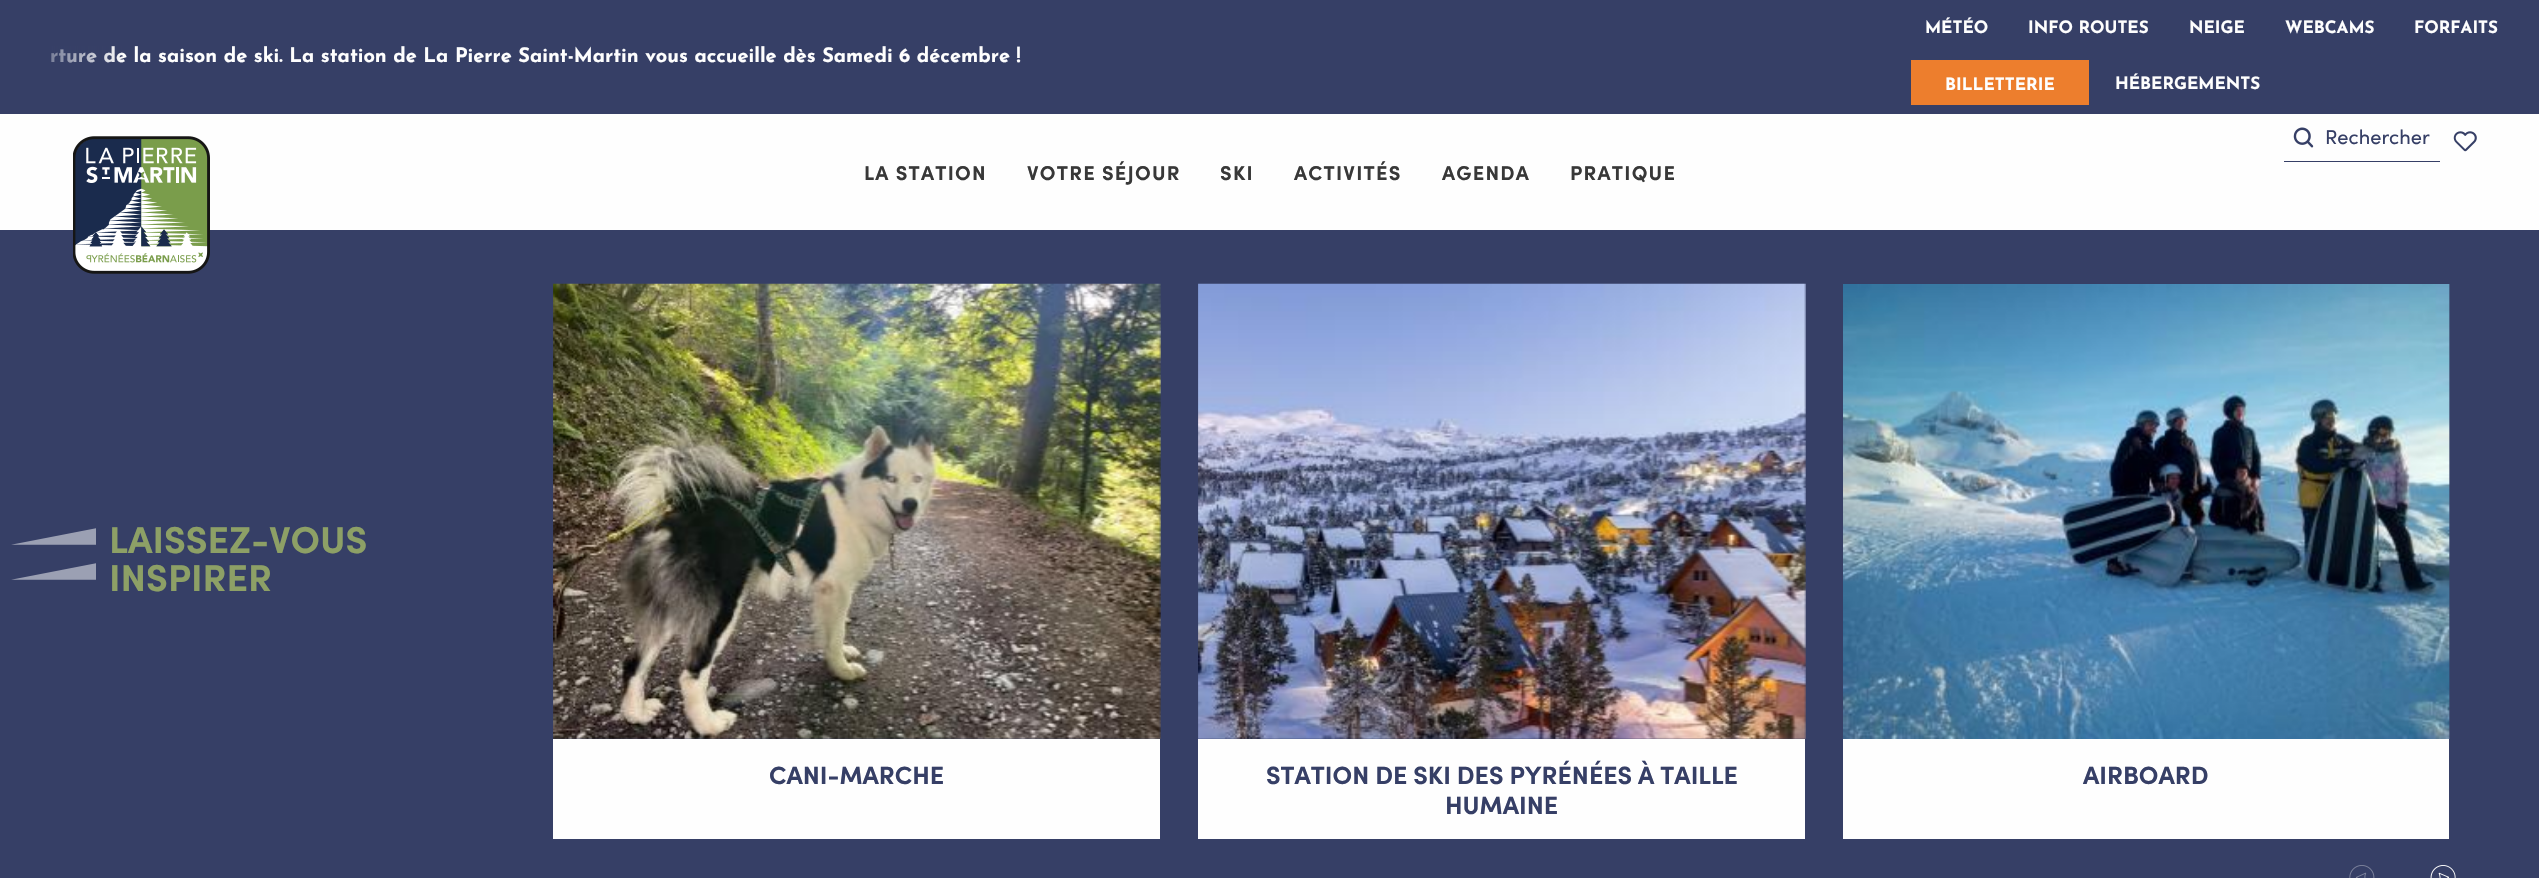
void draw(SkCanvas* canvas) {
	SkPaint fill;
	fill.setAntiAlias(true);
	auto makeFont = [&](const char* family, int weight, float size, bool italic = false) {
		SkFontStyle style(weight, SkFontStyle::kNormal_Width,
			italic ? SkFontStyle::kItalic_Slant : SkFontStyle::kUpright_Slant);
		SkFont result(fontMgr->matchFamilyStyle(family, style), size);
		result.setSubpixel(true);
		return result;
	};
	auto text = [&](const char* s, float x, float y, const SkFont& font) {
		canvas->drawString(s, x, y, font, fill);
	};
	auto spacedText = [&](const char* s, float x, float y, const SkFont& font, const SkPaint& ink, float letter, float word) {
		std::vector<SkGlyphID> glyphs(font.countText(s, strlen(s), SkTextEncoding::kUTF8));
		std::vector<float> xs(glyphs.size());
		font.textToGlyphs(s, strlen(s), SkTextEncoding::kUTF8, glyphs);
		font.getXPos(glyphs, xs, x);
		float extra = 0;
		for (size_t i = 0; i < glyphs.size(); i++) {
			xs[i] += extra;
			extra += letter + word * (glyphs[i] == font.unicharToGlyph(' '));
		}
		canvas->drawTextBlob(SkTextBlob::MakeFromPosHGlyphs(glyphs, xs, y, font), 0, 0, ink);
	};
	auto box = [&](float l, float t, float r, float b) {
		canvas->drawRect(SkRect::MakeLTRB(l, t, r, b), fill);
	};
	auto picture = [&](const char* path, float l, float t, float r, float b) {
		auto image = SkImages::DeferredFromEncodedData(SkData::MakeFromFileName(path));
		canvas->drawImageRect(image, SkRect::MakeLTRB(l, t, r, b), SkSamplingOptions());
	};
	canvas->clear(0xFF363F66);
	fill.setColor(0xFFED7E2D);
	box(1911, 60, 2089, 105);
	fill.setColor(0xFFFEFEFE);
	box(0, 114, 2539, 230);
	fill.setColor(0xFF363F66);
	box(2284, 161, 2440, 162);
	picture("image0.png", 2293, 127, 2314, 148);
	picture("image1.png", 2453, 131, 2477, 152);
	picture("image2.png", 73, 136, 210, 274);
	picture("image3.png", 11, 528, 96, 580);
	picture("image4.png", 553, 283, 1161, 739);
	fill.setColor(0xFFFEFEFE);
	box(553, 739, 1160, 839);
	picture("image5.png", 1198, 283, 1806, 739);
	box(1198, 739, 1805, 839);
	picture("image6.png", 1843, 284, 2450, 739);
	box(1843, 739, 2449, 839);
	picture("image7.png", 2349, 865, 2375, 878);
	picture("image8.png", 2430, 865, 2456, 878);
	auto font1 = makeFont("Josefin Sans", 700, 20);
	text("rture de la saison de ski. La station de La Pierre Saint-Martin vous accueille dès Samedi 6 décembre !", 50, 62, font1);
	{
		const SkColor colors[] = {0xFF363F66, 0x00363F66};
		const float stops[] = {0.1f, 1};
		const SkPoint ends[] = {{0, 57}, {125, 57}};
		fill.setShader(SkGradientShader::MakeLinear(ends, colors, stops, 2, SkTileMode::kClamp));
		fill.setAlpha(255);
	}
	box(51, 46, 123, 63);
	auto font2 = makeFont("Josefin Sans", 700, 17);
	fill.setShader(nullptr);
	fill.setColor(0xFFFEFEFE);
	text("MÉTÉO", 1925, 33, font2);
	text("INFO ROUTES", 2028, 33, font2);
	text("NEIGE", 2189, 33, font2);
	text("WEBCAMS", 2285, 33, font2);
	text("FORFAITS", 2414, 33, font2);
	text("BILLETTERIE", 1945, 90, font2);
	text("HÉBERGEMENTS", 2115, 89, font2);
	auto font3 = makeFont("Sofia", 400, 20);
	fill.setColor(0xFF363F66);
	text("Rechercher", 2325, 144, font3);
	auto font4 = makeFont("Sofia", 700, 20);
	fill.setColor(0xFF383838);
	spacedText("LA STATION", 864, 180, font4, fill, 1.25f, 0);
	spacedText("VOTRE SÉJOUR", 1027, 180, font4, fill, 1.25f, 0);
	spacedText("SKI", 1220, 180, font4, fill, 1.25f, 0);
	spacedText("ACTIVITÉS", 1294, 180, font4, fill, 1.25f, 0);
	spacedText("AGENDA", 1442, 180, font4, fill, 1.25f, 0);
	spacedText("PRATIQUE", 1570, 180, font4, fill, 1.25f, 0);
	auto font5 = makeFont("Sofia", 700, 37.5f);
	fill.setColor(0xFF8DA066);
	text("LAISSEZ-VOUS", 109, 553, font5);
	text("INSPIRER", 109, 591, font5);
	auto font6 = makeFont("Sofia", 700, 25);
	fill.setColor(0xFF363F66);
	text("CANI-MARCHE", 769, 784, font6);
	text("STATION DE SKI DES PYRÉNÉES À TAILLE", 1266, 784, font6);
	text("HUMAINE", 1445, 814, font6);
	text("AIRBOARD", 2083, 784, font6);
}
